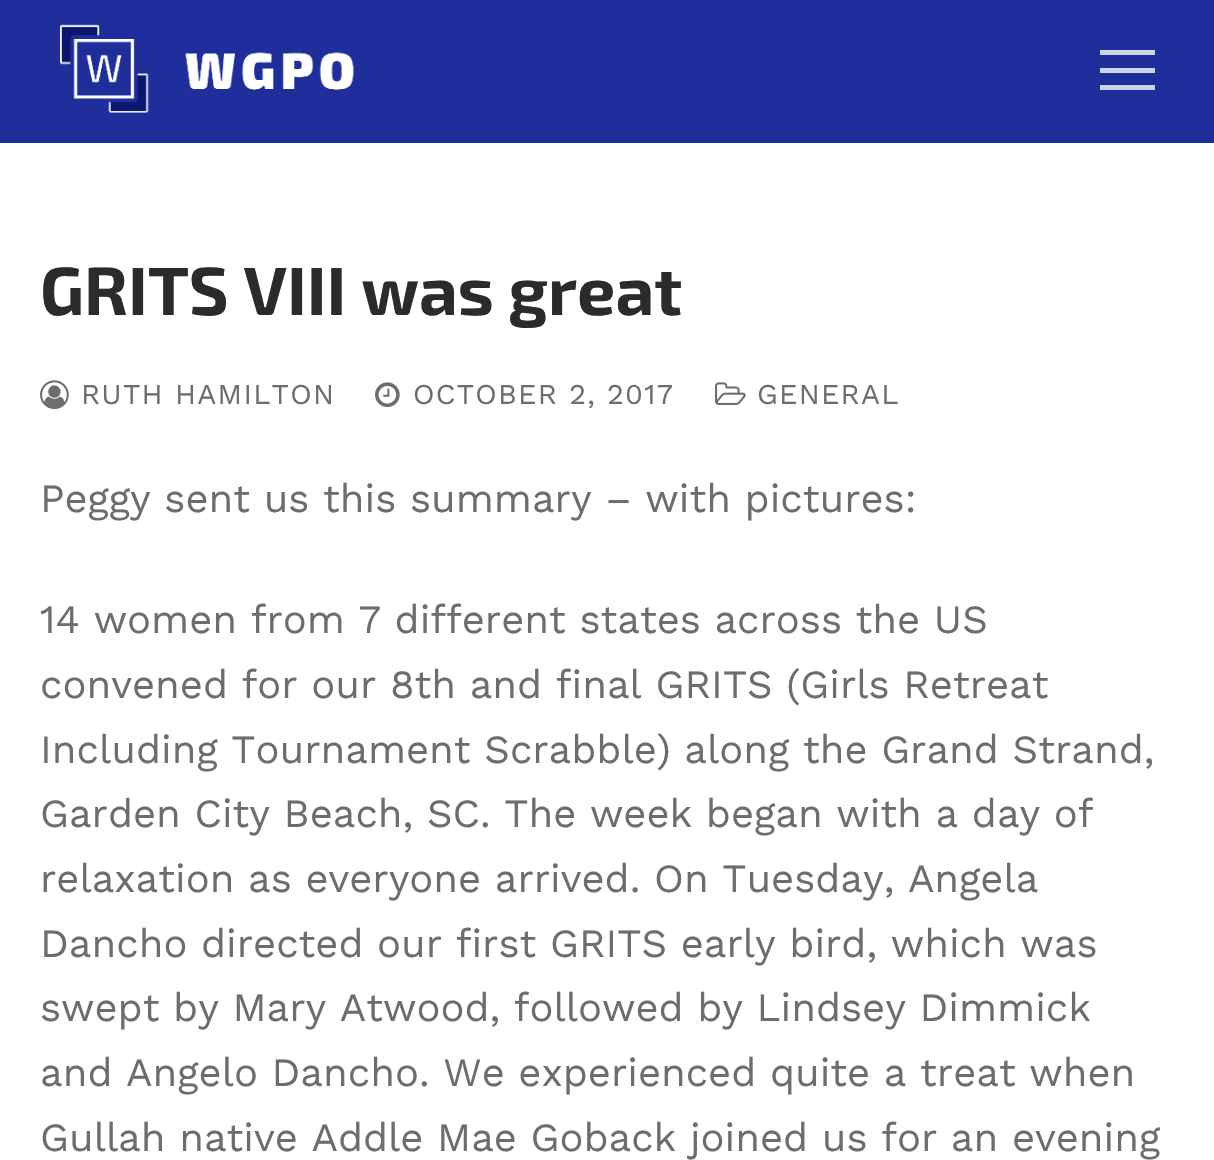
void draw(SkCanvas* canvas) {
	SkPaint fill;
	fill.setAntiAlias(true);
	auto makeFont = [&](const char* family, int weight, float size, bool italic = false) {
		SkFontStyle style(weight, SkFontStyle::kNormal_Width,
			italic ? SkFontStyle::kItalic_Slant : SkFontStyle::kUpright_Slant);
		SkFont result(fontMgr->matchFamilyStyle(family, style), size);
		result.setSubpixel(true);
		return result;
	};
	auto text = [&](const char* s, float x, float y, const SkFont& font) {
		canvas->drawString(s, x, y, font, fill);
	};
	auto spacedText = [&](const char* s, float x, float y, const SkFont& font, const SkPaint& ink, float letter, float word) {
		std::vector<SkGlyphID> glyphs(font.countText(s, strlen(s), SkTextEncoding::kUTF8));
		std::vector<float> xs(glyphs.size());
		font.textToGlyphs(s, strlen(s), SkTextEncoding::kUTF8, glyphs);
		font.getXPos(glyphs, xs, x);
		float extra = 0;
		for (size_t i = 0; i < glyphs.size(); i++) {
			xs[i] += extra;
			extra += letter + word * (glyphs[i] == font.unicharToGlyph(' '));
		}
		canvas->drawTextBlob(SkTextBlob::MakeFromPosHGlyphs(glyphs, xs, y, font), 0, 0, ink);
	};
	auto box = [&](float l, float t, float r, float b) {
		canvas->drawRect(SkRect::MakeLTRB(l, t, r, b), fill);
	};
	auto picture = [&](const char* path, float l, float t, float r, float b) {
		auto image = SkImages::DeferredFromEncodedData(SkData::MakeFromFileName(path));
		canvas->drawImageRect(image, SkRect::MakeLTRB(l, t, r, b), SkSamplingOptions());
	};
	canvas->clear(0xFFFFFFFF);
	fill.setColor(0xFF202E9B);
	box(0, 0, 1214, 143);
	picture("image0.png", 60, 24, 354, 113);
	fill.setColor(0xFFD0D3EA);
	box(1100, 68, 1155, 73);
	box(1100, 50, 1155, 55);
	box(1100, 85, 1155, 90);
	picture("image1.png", 40, 380, 69, 410);
	picture("image2.png", 375, 382, 400, 408);
	picture("image3.png", 715, 382, 746, 405);
	auto font1 = makeFont("Exo 2", 700, 68);
	fill.setColor(0xFF2B2B2B);
	text("GRITS VIII was great", 40, 315, font1);
	auto font2 = makeFont("Work Sans", 400, 28.75f);
	fill.setColor(0xFF6D6D6D);
	spacedText("RUTH HAMILTON", 81, 404, font2, fill, 1.25f, 0);
	spacedText("OCTOBER 2, 2017", 413, 404, font2, fill, 1.25f, 0);
	spacedText("GENERAL", 757, 404, font2, fill, 1.25f, 0);
	auto font3 = makeFont("Work Sans", 400, 40);
	text("Peggy sent us this summary – with pictures:", 40, 512, font3);
	text("14 women from 7 different states across the US", 40, 633, font3);
	text("convened for our 8th and final GRITS (Girls Retreat", 40, 698, font3);
	text("Including Tournament Scrabble) along the Grand Strand,", 40, 763, font3);
	text("Garden City Beach, SC. The week began with a day of", 40, 827, font3);
	text("relaxation as everyone arrived. On Tuesday, Angela", 40, 892, font3);
	text("Dancho directed our first GRITS early bird, which was", 40, 957, font3);
	text("swept by Mary Atwood, followed by Lindsey Dimmick", 40, 1021, font3);
	text("and Angelo Dancho. We experienced quite a treat when", 40, 1086, font3);
	text("Gullah native Addle Mae Goback joined us for an evening", 40, 1151, font3);
}
